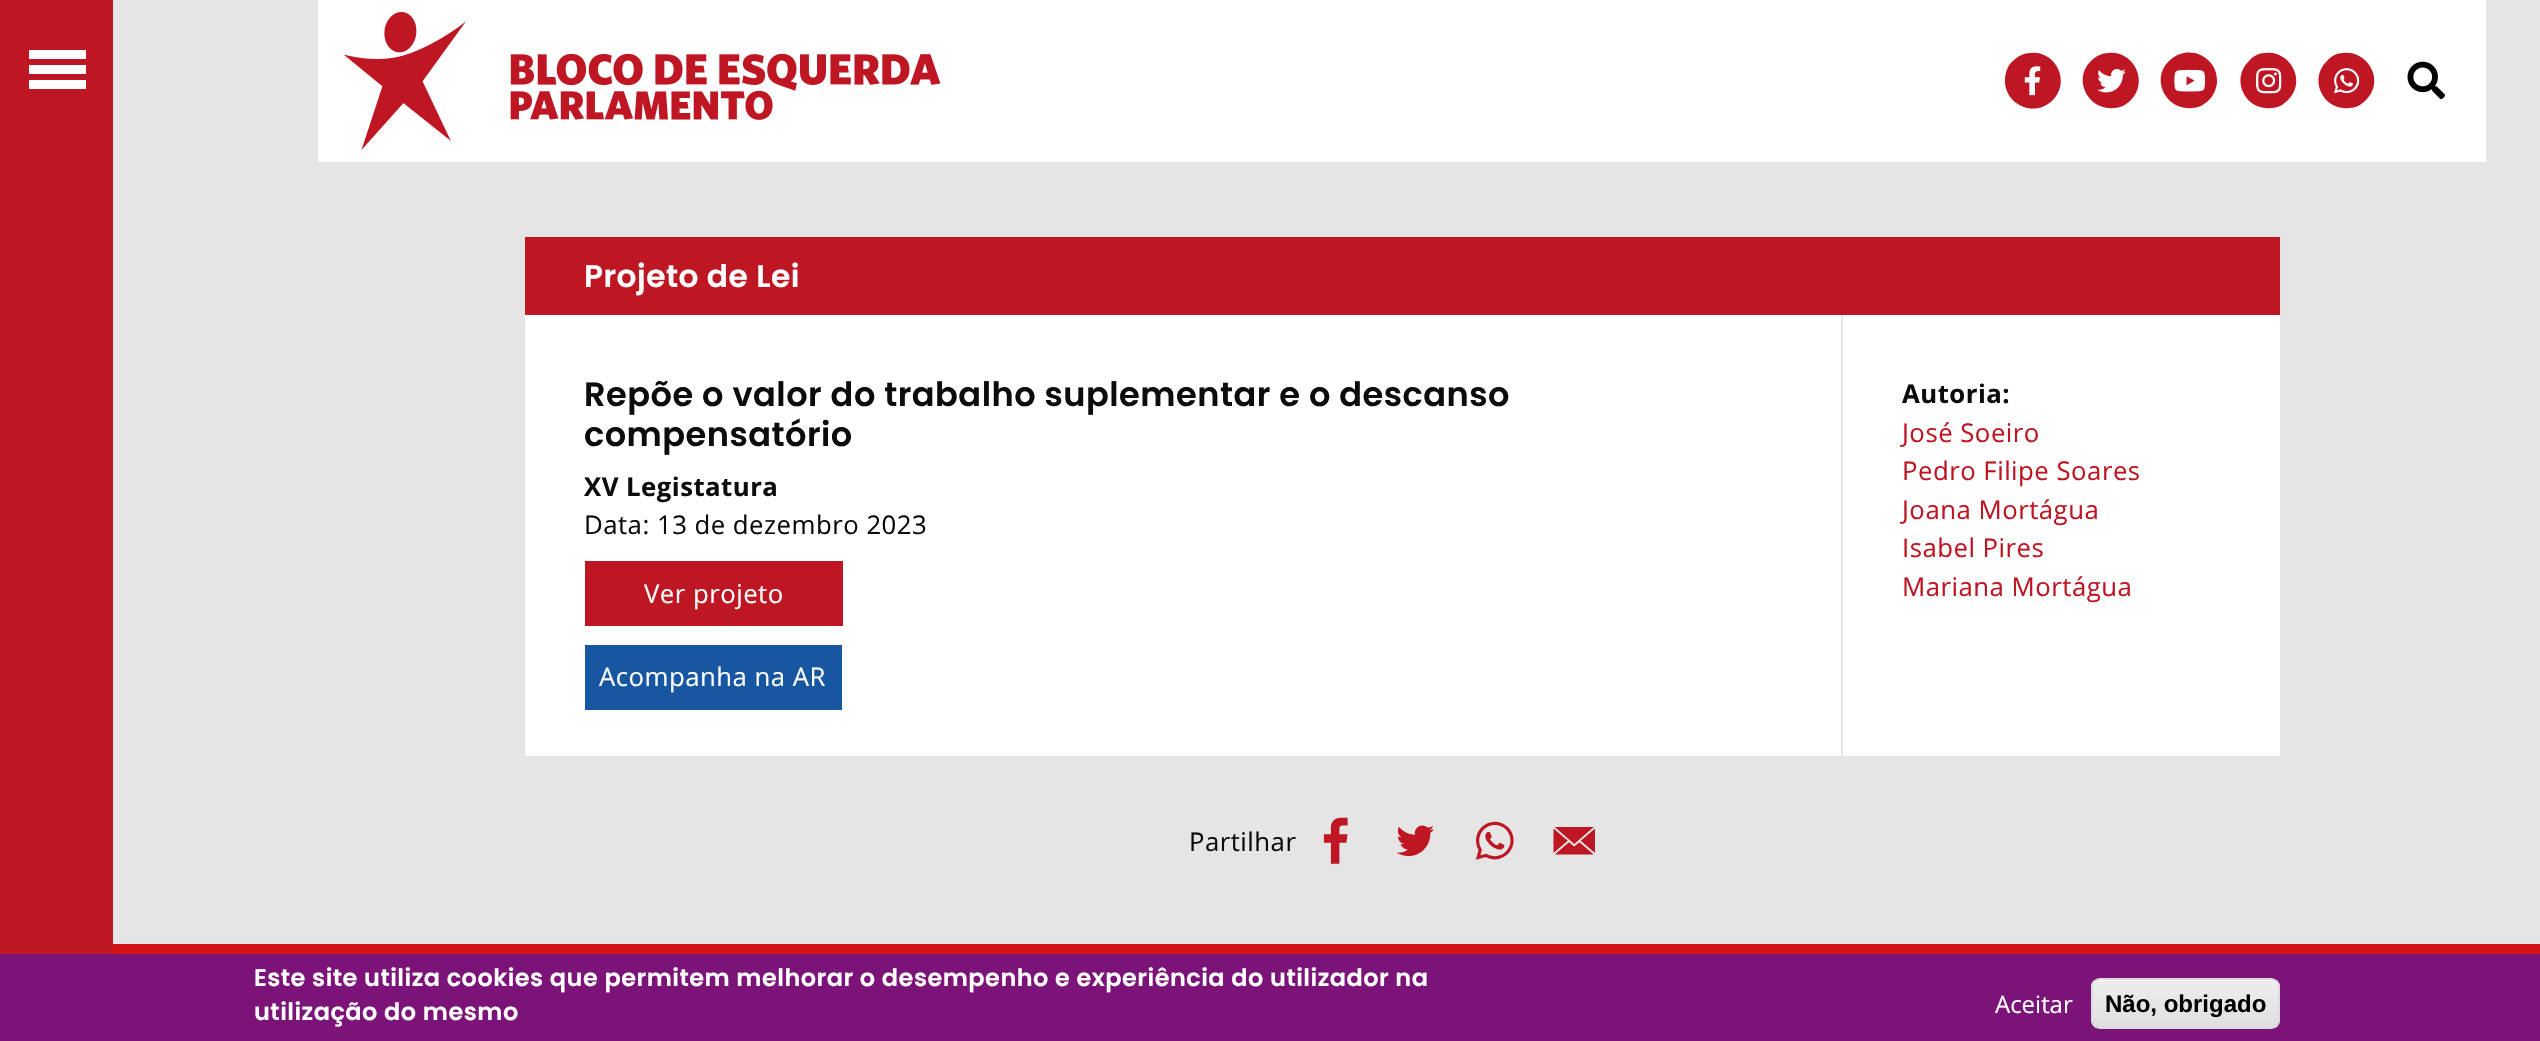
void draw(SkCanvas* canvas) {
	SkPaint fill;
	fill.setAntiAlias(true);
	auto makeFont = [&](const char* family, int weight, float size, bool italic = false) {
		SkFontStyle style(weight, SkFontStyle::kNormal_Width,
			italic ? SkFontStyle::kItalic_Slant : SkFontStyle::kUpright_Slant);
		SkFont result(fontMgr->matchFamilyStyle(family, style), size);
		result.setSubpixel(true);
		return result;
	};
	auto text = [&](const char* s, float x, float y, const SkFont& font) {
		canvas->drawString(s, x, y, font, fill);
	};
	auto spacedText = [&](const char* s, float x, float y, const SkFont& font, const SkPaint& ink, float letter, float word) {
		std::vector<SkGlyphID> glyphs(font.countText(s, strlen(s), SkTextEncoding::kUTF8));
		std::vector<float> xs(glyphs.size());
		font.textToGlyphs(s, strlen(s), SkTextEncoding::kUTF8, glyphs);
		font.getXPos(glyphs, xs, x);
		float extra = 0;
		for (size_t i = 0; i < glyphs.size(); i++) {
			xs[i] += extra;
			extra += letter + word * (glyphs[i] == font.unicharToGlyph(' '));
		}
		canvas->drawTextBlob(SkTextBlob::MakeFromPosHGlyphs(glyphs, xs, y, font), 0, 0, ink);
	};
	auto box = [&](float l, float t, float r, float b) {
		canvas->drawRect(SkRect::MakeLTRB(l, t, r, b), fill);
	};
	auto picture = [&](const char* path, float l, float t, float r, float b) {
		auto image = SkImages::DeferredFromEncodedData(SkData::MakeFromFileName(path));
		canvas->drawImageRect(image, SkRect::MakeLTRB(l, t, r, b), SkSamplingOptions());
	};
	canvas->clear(0xFFE5E5E5);
	fill.setColor(0xFFBE1622);
	box(0, 0, 113, 954);
	fill.setColor(0xFFFFFFFF);
	box(29, 65, 86, 74);
	box(29, 50, 86, 59);
	box(29, 80, 86, 89);
	box(318, 0, 2486, 162);
	picture("image0.png", 343, 12, 941, 150);
	fill.setColor(0xFFBE1622);
	canvas->drawPath(SkPathBuilder().moveTo(2013, 61).cubicTo(2018, 56, 2024, 53, 2030, 53).cubicTo(2056, 50, 2071, 82, 2053, 100).cubicTo(2034, 119, 2003, 104, 2005, 78).cubicTo(2006, 71, 2008, 65, 2013, 61).close().detach(), fill);
	picture("image1.png", 2024, 66, 2041, 96);
	canvas->drawPath(SkPathBuilder().moveTo(2091, 61).cubicTo(2096, 56, 2102, 53, 2108, 53).cubicTo(2134, 50, 2149, 82, 2131, 100).cubicTo(2126, 105, 2120, 108, 2114, 108).cubicTo(2088, 111, 2072, 79, 2091, 61).close().detach(), fill);
	picture("image2.png", 2097, 69, 2126, 93);
	canvas->drawPath(SkPathBuilder().moveTo(2169, 61).cubicTo(2188, 42, 2219, 57, 2217, 83).cubicTo(2216, 90, 2213, 96, 2209, 100).cubicTo(2204, 105, 2198, 108, 2192, 108).cubicTo(2166, 111, 2150, 79, 2169, 61).close().detach(), fill);
	picture("image3.png", 2174, 69, 2206, 92);
	canvas->drawPath(SkPathBuilder().moveTo(2249, 61).cubicTo(2253, 56, 2259, 53, 2265, 53).cubicTo(2291, 50, 2307, 82, 2288, 100).cubicTo(2283, 105, 2278, 108, 2271, 108).cubicTo(2245, 111, 2230, 79, 2249, 61).close().detach(), fill);
	picture("image4.png", 2256, 68, 2282, 94);
	canvas->drawPath(SkPathBuilder().moveTo(2327, 61).cubicTo(2331, 56, 2337, 53, 2343, 53).cubicTo(2369, 50, 2385, 82, 2366, 100).cubicTo(2361, 105, 2356, 108, 2349, 108).cubicTo(2323, 111, 2308, 79, 2327, 61).close().detach(), fill);
	picture("image5.png", 2334, 68, 2360, 94);
	picture("image6.png", 2407, 61, 2445, 100);
	box(525, 237, 2280, 315);
	fill.setColor(0xFFFFFFFF);
	box(525, 315, 1841, 756);
	fill.setColor(0xFFBE1622);
	box(585, 561, 843, 626);
	fill.setColor(0xFF1756A0);
	box(585, 645, 842, 710);
	fill.setColor(0xFFFFFFFF);
	box(1843, 315, 2280, 756);
	picture("image7.png", 1323, 817, 1348, 864);
	picture("image8.png", 1396, 825, 1434, 856);
	picture("image9.png", 1475, 821, 1514, 860);
	picture("image10.png", 1553, 827, 1595, 855);
	fill.setColor(0xFFD41316);
	box(113, 944, 2540, 954);
	fill.setColor(0xFF7B1379);
	box(0, 954, 2540, 1041);
	canvas->save();
	canvas->clipPath(SkPathBuilder().moveTo(2100, 978).lineTo(2271, 978).cubicTo(2276, 978, 2280, 982, 2280, 987).lineTo(2280, 1020).cubicTo(2280, 1025, 2276, 1029, 2271, 1029).lineTo(2100, 1029).cubicTo(2095, 1029, 2091, 1025, 2091, 1020).lineTo(2091, 987).cubicTo(2091, 982, 2095, 978, 2100, 978).close().detach(), true);
	{
		const SkColor colors[] = {0xFFEDEDED, 0xFFDFDFDF};
		const float stops[] = {0.05f, 1};
		const SkPoint ends[] = {{2186, 980}, {2186, 1028}};
		fill.setShader(SkGradientShader::MakeLinear(ends, colors, stops, 2, SkTileMode::kClamp));
		fill.setAlpha(255);
	}
	box(2091, 980, 2280, 1028);
	canvas->restore();
	fill.setShader(nullptr);
	fill.setColor(0xFFFFFFFF);
	canvas->drawPath(SkPathBuilder().moveTo(2100, 981).lineTo(2271, 981).cubicTo(2275, 981, 2278, 984, 2278, 988).lineTo(2278, 1022).lineTo(2278, 1025).cubicTo(2278, 1023, 2279, 1022, 2279, 1020).lineTo(2279, 988).cubicTo(2279, 984, 2275, 980, 2271, 980).lineTo(2101, 980).cubicTo(2099, 980, 2097, 981, 2095, 982).cubicTo(2097, 982, 2098, 981, 2100, 981).close().detach(), fill);
	fill.setStyle(SkPaint::kStroke_Style);
	fill.setStrokeWidth(2);
	fill.setColor(0xFFDCDCDC);
	canvas->drawRoundRect(SkRect::MakeLTRB(2092, 979, 2279, 1028), 8, 8, fill);
	auto font1 = makeFont("Poppins", 600, 31.25f);
	fill.setStyle(SkPaint::kFill_Style);
	fill.setColor(0xFFFFFFFF);
	spacedText("Projeto de Lei", 584, 287, font1, fill, 0.48f, 0);
	auto font2 = makeFont("Poppins", 600, 33.6f);
	fill.setColor(0xFF0C0C0C);
	spacedText("Repõe o valor do trabalho suplementar e o descanso", 584, 406, font2, fill, 0.48f, 0);
	spacedText("compensatório", 584, 446, font2, fill, 0.48f, 0);
	auto font3 = makeFont("Open Sans", 700, 25.75f);
	spacedText("XV Legistatura", 584, 496, font3, fill, 0.48f, 0);
	auto font4 = makeFont("Open Sans", 400, 25.75f);
	spacedText("Data: 13 de dezembro 2023", 584, 534, font4, fill, 0.48f, 0);
	fill.setColor(0xFFFFFFFF);
	spacedText("Ver projeto", 644, 603, font4, fill, 0.48f, 0);
	spacedText("Acompanha na AR", 599, 686, font4, fill, 0.48f, 0);
	fill.setColor(0xFF0C0C0C);
	spacedText("Autoria:", 1902, 403, font3, fill, 0.48f, 0);
	fill.setColor(0xFFBE1622);
	spacedText("José Soeiro", 1902, 442, font4, fill, 0.48f, 0);
	spacedText("Pedro Filipe Soares", 1902, 480, font4, fill, 0.48f, 0);
	spacedText("Joana Mortágua", 1902, 519, font4, fill, 0.48f, 0);
	spacedText("Isabel Pires", 1902, 557, font4, fill, 0.48f, 0);
	spacedText("Mariana Mortágua", 1902, 596, font4, fill, 0.48f, 0);
	fill.setColor(0xFF0C0C0C);
	spacedText("Partilhar", 1189, 851, font4, fill, 0.48f, 0);
	auto font5 = makeFont("Poppins", 600, 24);
	fill.setColor(0xFFFFFFFF);
	spacedText("Este site utiliza cookies que permitem melhorar o desempenho e experiência do utilizador na", 254, 986, font5, fill, 0.48f, 0);
	spacedText("utilização do mesmo", 254, 1020, font5, fill, 0.48f, 0);
	auto font6 = makeFont("Open Sans", 400, 24);
	text("Aceitar", 1995, 1013, font6);
	auto font7 = makeFont("Liberation Sans", 700, 24);
	fill.setColor(0xFF000000);
	text("Não, obrigado", 2105, 1012, font7);
}
